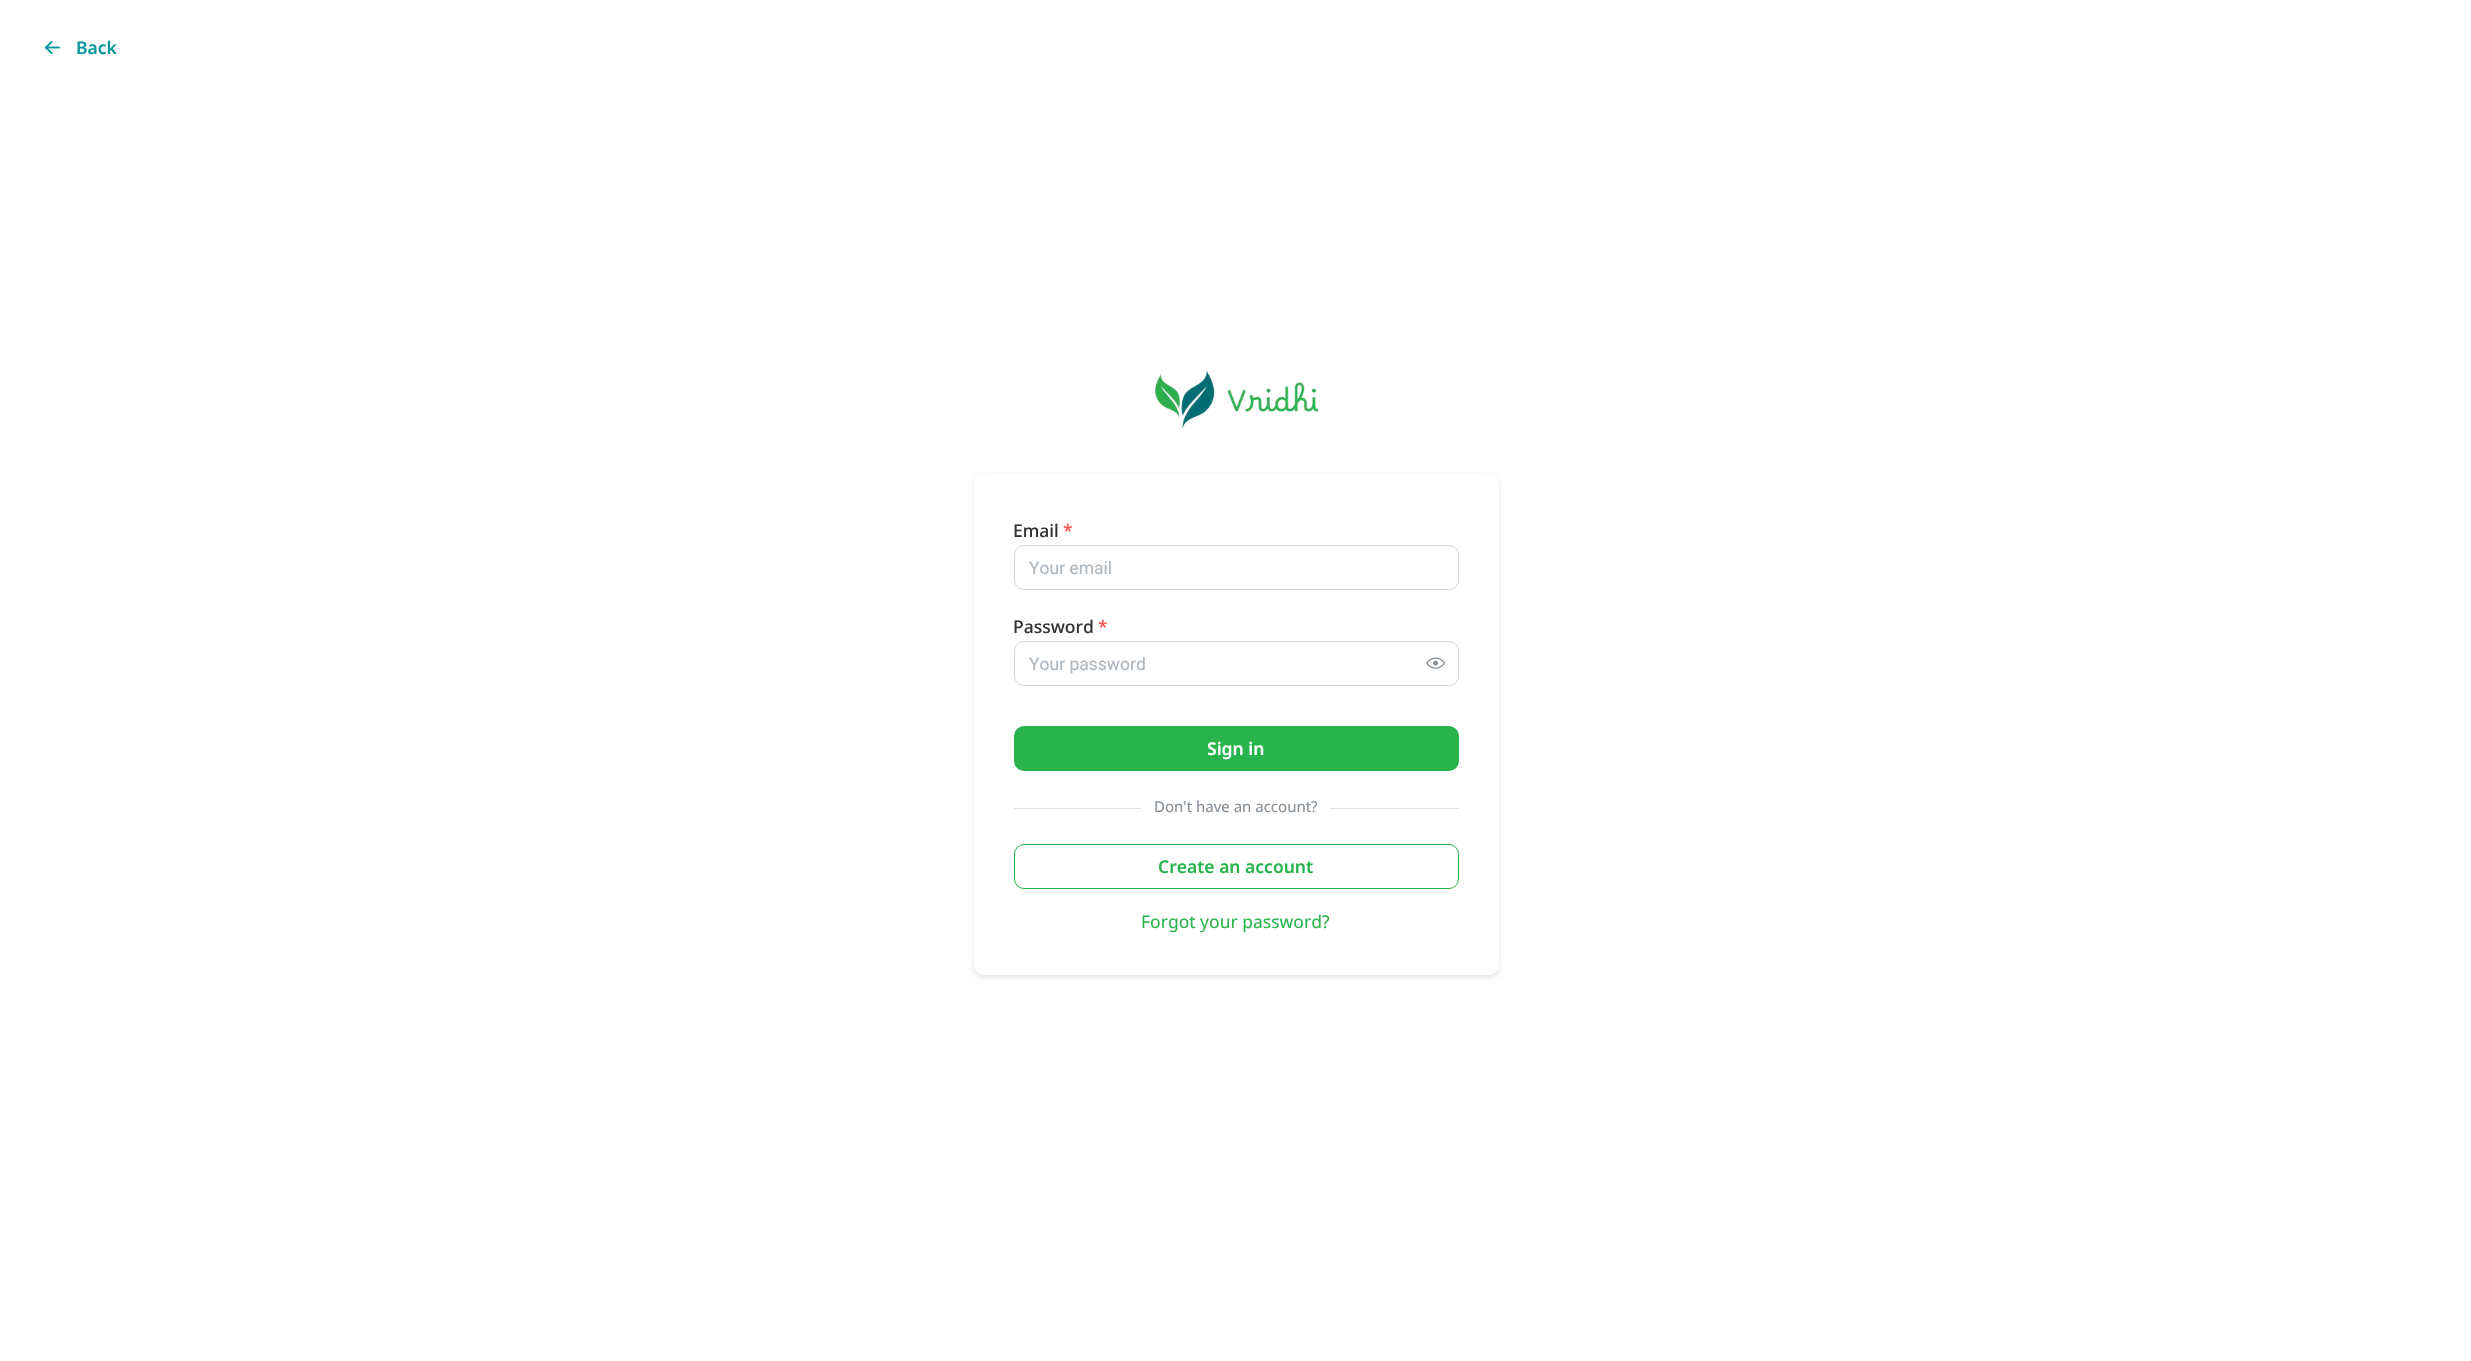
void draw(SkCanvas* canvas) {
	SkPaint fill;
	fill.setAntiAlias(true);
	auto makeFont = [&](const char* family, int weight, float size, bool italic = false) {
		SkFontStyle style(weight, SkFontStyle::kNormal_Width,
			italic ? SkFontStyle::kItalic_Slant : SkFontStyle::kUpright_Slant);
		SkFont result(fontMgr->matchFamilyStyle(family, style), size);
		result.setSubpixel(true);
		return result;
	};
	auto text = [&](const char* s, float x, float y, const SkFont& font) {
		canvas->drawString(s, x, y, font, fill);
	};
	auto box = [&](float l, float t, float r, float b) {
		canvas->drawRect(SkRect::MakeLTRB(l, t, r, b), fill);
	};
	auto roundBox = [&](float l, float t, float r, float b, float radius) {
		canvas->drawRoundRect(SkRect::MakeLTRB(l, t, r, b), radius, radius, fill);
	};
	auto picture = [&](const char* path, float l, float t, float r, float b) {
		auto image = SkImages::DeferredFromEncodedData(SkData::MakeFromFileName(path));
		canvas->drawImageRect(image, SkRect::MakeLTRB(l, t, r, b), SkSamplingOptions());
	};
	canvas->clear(0xFFFFFFFF);
	picture("image0.png", 45, 40, 60, 55);
	picture("image1.png", 1154, 370, 1319, 429);
	canvas->save();
	canvas->clipPath(SkPathBuilder(SkPathFillType::kEvenOdd).moveTo(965, 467).lineTo(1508, 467).lineTo(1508, 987).lineTo(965, 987).close().moveTo(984, 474).lineTo(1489, 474).cubicTo(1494.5f, 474, 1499, 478.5f, 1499, 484).lineTo(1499, 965).cubicTo(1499, 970.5f, 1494.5f, 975, 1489, 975).lineTo(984, 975).cubicTo(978.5f, 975, 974, 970.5f, 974, 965).lineTo(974, 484).cubicTo(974, 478.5f, 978.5f, 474, 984, 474).close().detach(), true);
	fill.setColor(0x1A000000);
	fill.setMaskFilter(SkMaskFilter::MakeBlur(kNormal_SkBlurStyle, 2.5f));
	canvas->drawRoundRect(SkRect::MakeLTRB(974, 476, 1499, 978), 10, 10, fill);
	fill.setMaskFilter(nullptr);
	canvas->restore();
	fill.setStyle(SkPaint::kStroke_Style);
	fill.setStrokeWidth(1);
	fill.setColor(0xFFCED4DA);
	canvas->drawRoundRect(SkRect::MakeLTRB(1014.5f, 545.5f, 1458.5f, 589.5f), 9.5f, 9.5f, fill);
	canvas->drawRoundRect(SkRect::MakeLTRB(1014.5f, 641.5f, 1458.5f, 685.5f), 9.5f, 9.5f, fill);
	picture("image2.png", 1426, 657, 1445, 669);
	fill.setStyle(SkPaint::kFill_Style);
	fill.setColor(0xFF28B34C);
	roundBox(1014, 726, 1459, 771, 10);
	fill.setColor(0xFFDEE2E6);
	box(1014, 808, 1141, 809);
	box(1330, 808, 1459, 809);
	fill.setStyle(SkPaint::kStroke_Style);
	fill.setColor(0xFF28B34C);
	canvas->drawRoundRect(SkRect::MakeLTRB(1014.5f, 844.5f, 1458.5f, 888.5f), 9.5f, 9.5f, fill);
	auto font1 = makeFont("Noto Sans", 600, 17.5f);
	fill.setStyle(SkPaint::kFill_Style);
	fill.setColor(0xFF08979C);
	text("Back", 76, 54, font1);
	auto font2 = makeFont("Noto Sans", 500, 17.5f);
	fill.setColor(0xFF333333);
	text("Email", 1013, 537, font2);
	fill.setColor(0xFFFA5252);
	text("*", 1063, 537, font2);
	auto font3 = makeFont("Roboto", 400, 17.5f);
	fill.setColor(0xFFADB5BD);
	text("Your email", 1029, 574, font3);
	fill.setColor(0xFF333333);
	text("Password", 1013, 633, font2);
	fill.setColor(0xFFFA5252);
	text("*", 1098, 633, font2);
	fill.setColor(0xFFADB5BD);
	text("Your password", 1029, 670, font3);
	canvas->save();
	canvas->clipRect(SkRect::MakeLTRB(1208, 728, 1264, 770));
	fill.setColor(0xFFFFFFFF);
	text("Sign in", 1207, 755, font1);
	canvas->restore();
	auto font4 = makeFont("Noto Sans", 400, 15);
	fill.setColor(0xFF868E96);
	text("Don't have an account?", 1154, 812, font4);
	fill.setColor(0xFF28B34C);
	text("Create an account", 1158, 873, font1);
	auto font5 = makeFont("Noto Sans", 400, 17.5f);
	text("Forgot your password?", 1141, 928, font5);
}
